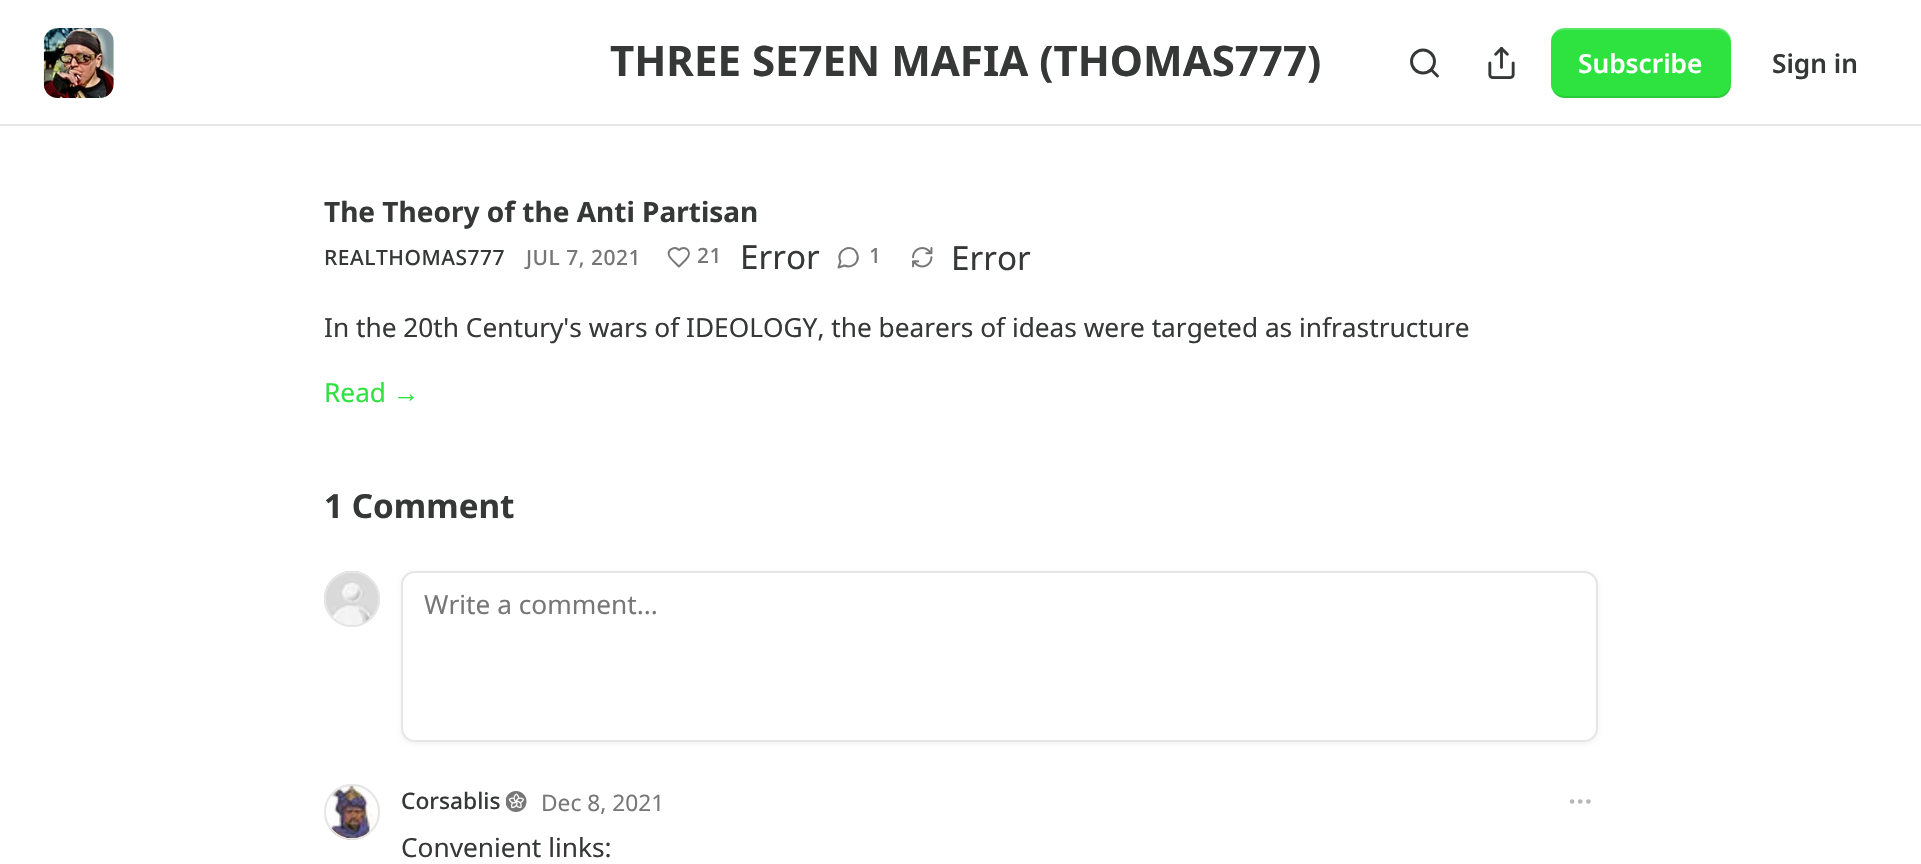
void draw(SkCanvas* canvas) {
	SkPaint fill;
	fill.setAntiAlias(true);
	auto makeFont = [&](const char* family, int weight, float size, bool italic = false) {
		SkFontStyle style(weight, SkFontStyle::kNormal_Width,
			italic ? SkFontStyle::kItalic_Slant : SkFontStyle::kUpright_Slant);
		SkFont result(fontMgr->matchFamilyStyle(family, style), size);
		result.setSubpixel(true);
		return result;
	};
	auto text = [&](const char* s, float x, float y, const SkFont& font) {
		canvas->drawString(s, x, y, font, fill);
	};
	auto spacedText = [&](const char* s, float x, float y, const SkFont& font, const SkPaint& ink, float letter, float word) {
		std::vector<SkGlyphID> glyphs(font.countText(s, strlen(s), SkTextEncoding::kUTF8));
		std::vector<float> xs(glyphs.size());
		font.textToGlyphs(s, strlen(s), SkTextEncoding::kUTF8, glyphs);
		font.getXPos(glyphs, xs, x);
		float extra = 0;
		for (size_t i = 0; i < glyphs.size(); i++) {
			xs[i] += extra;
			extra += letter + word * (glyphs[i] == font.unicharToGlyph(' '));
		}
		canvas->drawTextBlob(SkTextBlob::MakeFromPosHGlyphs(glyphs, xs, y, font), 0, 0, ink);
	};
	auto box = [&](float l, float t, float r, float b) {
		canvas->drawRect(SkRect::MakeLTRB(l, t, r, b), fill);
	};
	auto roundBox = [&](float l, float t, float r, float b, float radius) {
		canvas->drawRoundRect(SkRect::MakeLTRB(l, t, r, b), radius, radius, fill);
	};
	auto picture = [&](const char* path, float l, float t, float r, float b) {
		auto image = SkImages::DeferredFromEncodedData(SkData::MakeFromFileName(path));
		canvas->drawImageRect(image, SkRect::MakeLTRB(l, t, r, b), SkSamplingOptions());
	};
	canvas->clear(0xFFFFFFFF);
	fill.setColor(0xFFE6E6E6);
	box(0, 124, 1921, 126);
	picture("image0.png", 43, 28, 114, 98);
	fill.setStyle(SkPaint::kStroke_Style);
	fill.setStrokeWidth(2.9f);
	fill.setColor(0xFF363737);
	canvas->drawCircle(1423, 61.5f, 11.5f, fill);
	fill.setStrokeCap(SkPaint::kRound_Cap);
	fill.setStrokeJoin(SkPaint::kRound_Join);
	canvas->drawPath(SkPathBuilder().moveTo(1437.5f, 76).lineTo(1431.5f, 70).detach(), fill);
	picture("image1.png", 1488, 47, 1515, 79);
	fill.setStyle(SkPaint::kFill_Style);
	fill.setColor(0xFF2EE240);
	roundBox(1551, 28, 1731, 98, 14);
	fill.setColor(0x1A000000);
	canvas->drawPath(SkPathBuilder().moveTo(1552, 89).cubicTo(1554, 94, 1559, 98, 1565, 98).lineTo(1717, 98).cubicTo(1725, 98, 1731, 92, 1731, 84).lineTo(1731, 82).cubicTo(1731, 90, 1724, 96, 1717, 96).lineTo(1564, 96).cubicTo(1559, 96, 1554, 93, 1552, 89).close().detach(), fill);
	fill.setColor(0x33FFFFFF);
	canvas->drawPath(SkPathBuilder().moveTo(1564, 30).lineTo(1717, 30).cubicTo(1724, 30, 1731, 36, 1731, 44).lineTo(1731, 42).cubicTo(1731, 34, 1725, 28, 1717, 28).lineTo(1565, 28).cubicTo(1559, 28, 1554, 32, 1552, 37).cubicTo(1554, 33, 1559, 30, 1564, 30).close().detach(), fill);
	fill.setStyle(SkPaint::kStroke_Style);
	fill.setStrokeWidth(2);
	fill.setColor(0xFF777777);
	canvas->drawPath(SkPathBuilder().moveTo(686, 259.5f).cubicTo(693.5f, 252, 685, 244, 679, 250).cubicTo(675, 246, 667, 249, 669, 255.5f).cubicTo(670, 258.5f, 676.5f, 264, 679, 266.5f).close().detach(), fill);
	canvas->drawPath(SkPathBuilder().moveTo(844.5f, 265.5f).cubicTo(849, 267.5f, 855, 266, 857, 261).cubicTo(858, 259, 858, 256, 857, 253.5f).cubicTo(852, 242, 835, 250.5f, 840.5f, 261.5f).lineTo(838.5f, 267.5f).close().detach(), fill);
	picture("image2.png", 912, 247, 933, 268);
	fill.setStrokeCap(SkPaint::kButt_Cap);
	fill.setStrokeJoin(SkPaint::kMiter_Join);
	fill.setColor(0xFFE6E6E6);
	canvas->drawCircle(352, 599, 27, fill);
	picture("image3.png", 324, 571, 380, 626);
	canvas->drawCircle(352, 599, 27, fill);
	fill.setStyle(SkPaint::kFill_Style);
	fill.setColor(0x0D000000);
	fill.setMaskFilter(SkMaskFilter::MakeBlur(kNormal_SkBlurStyle, 2));
	canvas->drawRoundRect(SkRect::MakeLTRB(401, 572, 1598, 744), 14, 14, fill);
	fill.setMaskFilter(nullptr);
	fill.setColor(0xFFFFFFFF);
	canvas->drawRoundRect(SkRect::MakeLTRB(402, 572, 1597, 741), 13, 13, fill);
	fill.setStyle(SkPaint::kStroke_Style);
	fill.setColor(0xFFE6E6E6);
	canvas->drawRoundRect(SkRect::MakeLTRB(402, 572, 1597, 741), 13, 13, fill);
	canvas->drawCircle(352, 812, 27, fill);
	picture("image4.png", 324, 784, 380, 840);
	canvas->drawCircle(352, 812, 27, fill);
	picture("image5.png", 506, 791, 527, 812);
	fill.setStrokeWidth(2.3f);
	fill.setColor(0xFFB6B6B6);
	canvas->drawCircle(1580.2f, 801.5f, 1.2f, fill);
	canvas->drawCircle(1588.4f, 801.5f, 1.2f, fill);
	canvas->drawCircle(1572.1f, 801.5f, 1.2f, fill);
	auto font1 = makeFont("Noto Sans", 700, 42);
	fill.setStyle(SkPaint::kFill_Style);
	fill.setColor(0xFF363737);
	text("THREE SE7EN MAFIA (THOMAS777)", 610, 76, font1);
	auto font2 = makeFont("Noto Sans", 600, 26.25f);
	fill.setColor(0xFFFFFFFF);
	text("Subscribe", 1578, 73, font2);
	fill.setColor(0xFF363737);
	text("Sign in", 1772, 73, font2);
	auto font3 = makeFont("Noto Sans", 700, 28);
	text("The Theory of the Anti Partisan", 324, 222, font3);
	auto font4 = makeFont("Noto Sans", 500, 21);
	spacedText("REALTHOMAS777", 324, 265, font4, fill, 0.5f, 0);
	fill.setColor(0xFF777777);
	spacedText("JUL 7, 2021", 526, 265, font4, fill, 0.5f, 0);
	spacedText("21", 697, 263, font4, fill, 0.5f, 0);
	auto font5 = makeFont("Noto Sans", 400, 33.25f);
	fill.setColor(0xFF363737);
	text("Error", 740, 269, font5);
	fill.setColor(0xFF777777);
	spacedText("1", 869, 263, font4, fill, 0.5f, 0);
	fill.setColor(0xFF363737);
	text("Error", 951, 270, font5);
	auto font6 = makeFont("Noto Sans", 400, 26.25f);
	text("In the 20th Century's wars of IDEOLOGY, the bearers of ideas were targeted as infrastructure", 324, 337, font6);
	fill.setColor(0xFF2EE240);
	text("Read", 324, 402, font6);
	auto font7 = makeFont("Liberation Sans", 400, 26.25f);
	text("→", 393, 402, font7);
	auto font8 = makeFont("Noto Sans", 700, 33.25f);
	fill.setColor(0xFF363737);
	text("1 Comment", 324, 518, font8);
	fill.setColor(0xFF777777);
	text("Write a comment...", 424, 614, font6);
	auto font9 = makeFont("Noto Sans", 500, 22.75f);
	fill.setColor(0xFF363737);
	text("Corsablis", 401, 809, font9);
	auto font10 = makeFont("Noto Sans", 400, 22.75f);
	fill.setColor(0xFF777777);
	text("Dec 8, 2021", 541, 811, font10);
	fill.setColor(0xFF363737);
	text("Convenient links:", 401, 857, font6);
}
